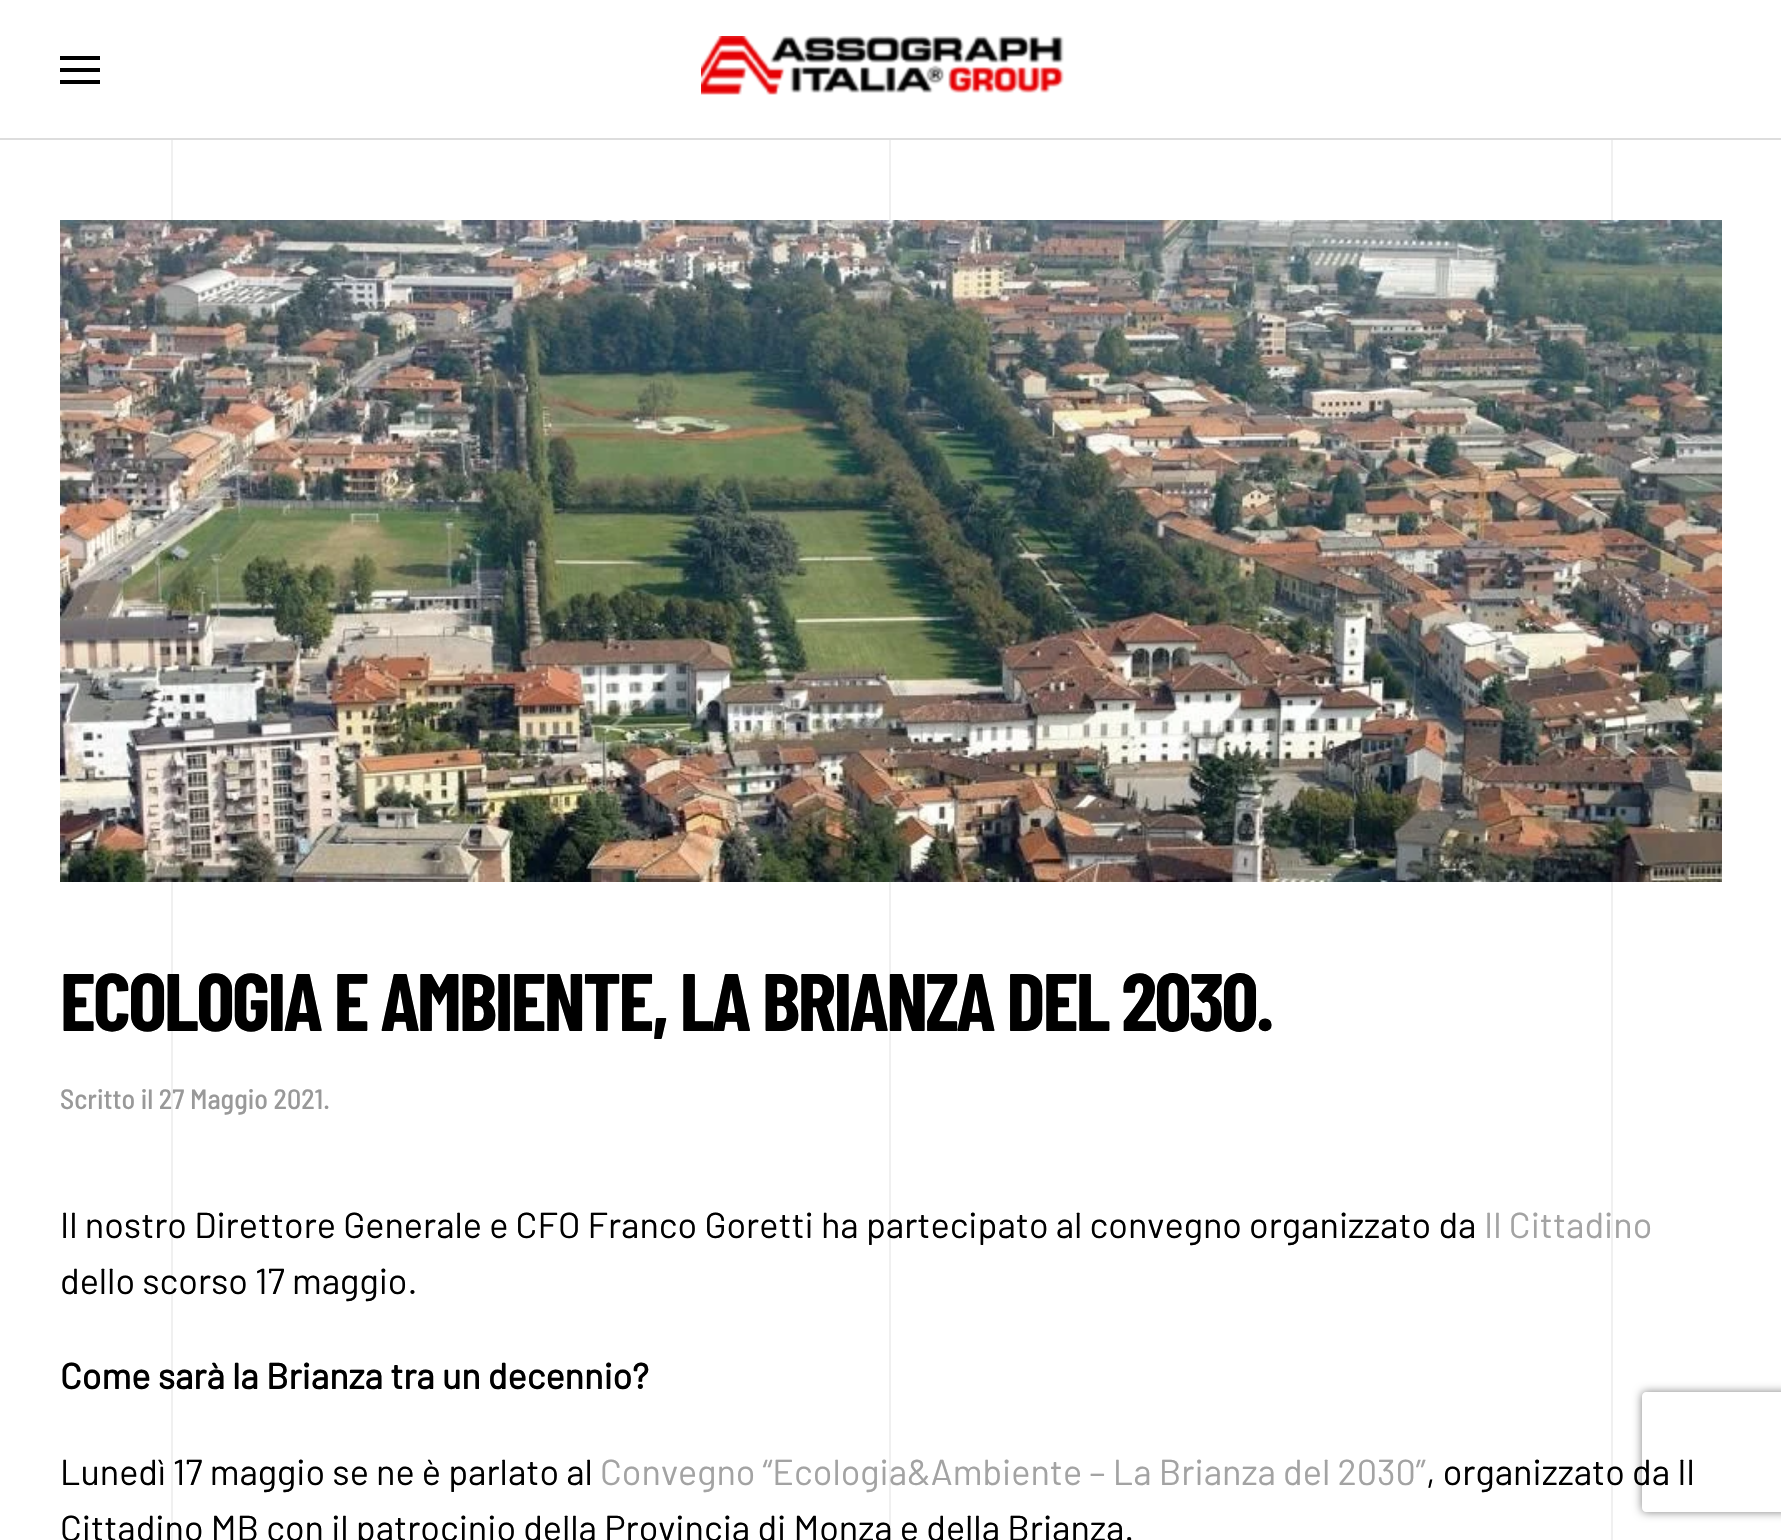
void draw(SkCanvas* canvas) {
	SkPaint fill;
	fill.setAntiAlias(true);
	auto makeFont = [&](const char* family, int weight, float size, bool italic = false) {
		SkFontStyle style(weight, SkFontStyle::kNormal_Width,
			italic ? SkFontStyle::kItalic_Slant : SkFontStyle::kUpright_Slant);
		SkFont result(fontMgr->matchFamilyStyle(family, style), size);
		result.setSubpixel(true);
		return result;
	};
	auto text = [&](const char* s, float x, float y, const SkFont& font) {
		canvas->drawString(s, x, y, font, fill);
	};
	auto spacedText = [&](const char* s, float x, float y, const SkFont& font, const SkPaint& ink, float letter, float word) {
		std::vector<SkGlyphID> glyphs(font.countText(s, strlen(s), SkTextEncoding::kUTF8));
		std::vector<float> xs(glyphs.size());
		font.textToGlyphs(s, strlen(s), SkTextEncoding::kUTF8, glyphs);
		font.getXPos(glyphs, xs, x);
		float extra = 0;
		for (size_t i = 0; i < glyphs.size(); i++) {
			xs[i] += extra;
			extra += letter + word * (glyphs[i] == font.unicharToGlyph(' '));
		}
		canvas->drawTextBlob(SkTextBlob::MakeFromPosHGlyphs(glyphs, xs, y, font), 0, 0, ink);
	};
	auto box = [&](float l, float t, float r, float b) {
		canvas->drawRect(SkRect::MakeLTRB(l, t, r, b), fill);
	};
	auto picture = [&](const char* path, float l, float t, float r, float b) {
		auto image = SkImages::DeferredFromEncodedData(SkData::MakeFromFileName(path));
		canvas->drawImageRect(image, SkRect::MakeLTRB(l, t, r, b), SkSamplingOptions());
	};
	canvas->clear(0xFFFFFFFF);
	fill.setColor(0xFFDDDDDD);
	box(0, 138, 1781, 140);
	fill.setColor(0xFF000000);
	box(60, 56, 100, 60);
	box(60, 68, 100, 72);
	box(60, 80, 100, 84);
	picture("image0.png", 701, 36, 1064, 95);
	picture("image1.png", 171, 140, 1613, 1540);
	picture("image2.png", 60, 220, 1722, 882);
	canvas->save();
	canvas->clipPath(SkPathBuilder(SkPathFillType::kEvenOdd).moveTo(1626, 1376).lineTo(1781, 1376).lineTo(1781, 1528).lineTo(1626, 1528).close().moveTo(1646, 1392).lineTo(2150, 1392).cubicTo(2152, 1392, 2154, 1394, 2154, 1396).lineTo(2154, 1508).cubicTo(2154, 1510, 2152, 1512, 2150, 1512).lineTo(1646, 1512).cubicTo(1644, 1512, 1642, 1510, 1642, 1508).lineTo(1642, 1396).cubicTo(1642, 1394, 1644, 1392, 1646, 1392).close().detach(), true);
	fill.setColor(0xFF808080);
	fill.setMaskFilter(SkMaskFilter::MakeBlur(kNormal_SkBlurStyle, 5));
	canvas->drawRoundRect(SkRect::MakeLTRB(1642, 1392, 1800, 1512), 4, 4, fill);
	fill.setMaskFilter(nullptr);
	canvas->restore();
	auto font1 = makeFont("Barlow Condensed", 700, 81.6f);
	fill.setColor(0xFF000000);
	spacedText("ECOLOGIA E AMBIENTE, LA BRIANZA DEL 2030.", 60, 1031, font1, fill, -2.7f, 0);
	auto font2 = makeFont("Barlow Semi Condensed", 500, 28);
	fill.setColor(0xFF999999);
	text("Scritto il 27 Maggio 2021.", 60, 1109, font2);
	auto font3 = makeFont("Barlow", 400, 36);
	fill.setColor(0xFF000000);
	text("Il nostro Direttore Generale e CFO Franco Goretti ha partecipato al convegno organizzato da", 60, 1238, font3);
	fill.setColor(0xFFA3A3A3);
	text("Il Cittadino", 1484, 1238, font3);
	fill.setColor(0xFF000000);
	text("dello scorso 17 maggio.", 60, 1294, font3);
	auto font4 = makeFont("Barlow", 700, 36);
	text("Come sarà la Brianza tra un decennio?", 60, 1389, font4);
	text("Lunedì 17 maggio se ne è parlato al", 60, 1485, font3);
	fill.setColor(0xFFA3A3A3);
	text("Convegno “Ecologia&Ambiente – La Brianza del 2030”", 600, 1485, font3);
	fill.setColor(0xFF000000);
	text(", organizzato da Il", 1426, 1485, font3);
	text("Cittadino MB con il patrocinio della Provincia di Monza e della Brianza.", 60, 1541, font3);
}
